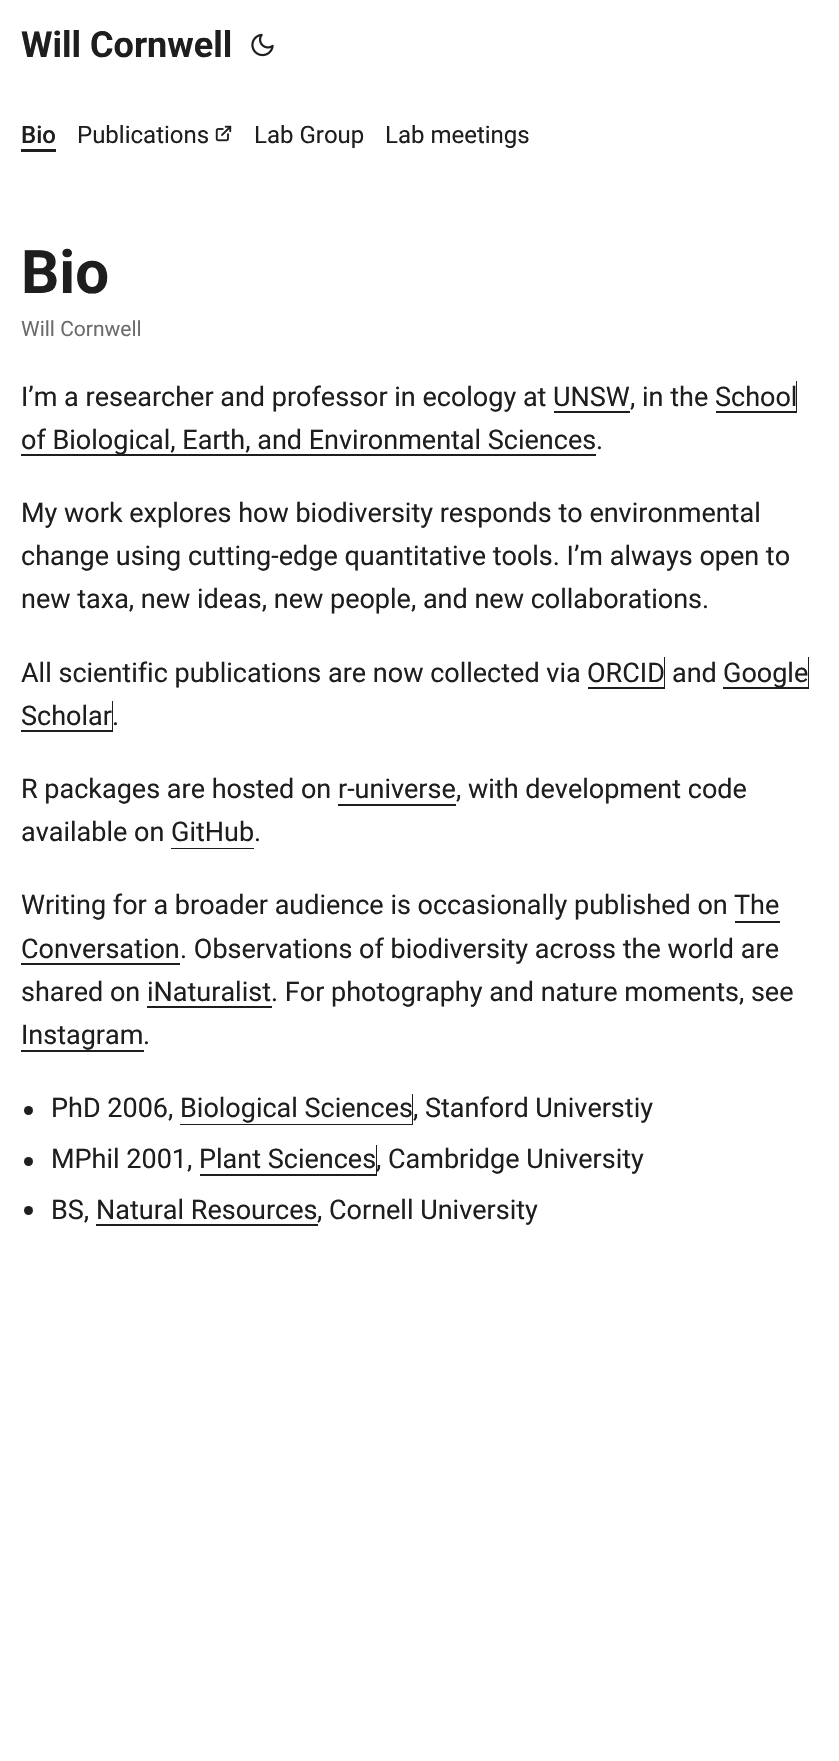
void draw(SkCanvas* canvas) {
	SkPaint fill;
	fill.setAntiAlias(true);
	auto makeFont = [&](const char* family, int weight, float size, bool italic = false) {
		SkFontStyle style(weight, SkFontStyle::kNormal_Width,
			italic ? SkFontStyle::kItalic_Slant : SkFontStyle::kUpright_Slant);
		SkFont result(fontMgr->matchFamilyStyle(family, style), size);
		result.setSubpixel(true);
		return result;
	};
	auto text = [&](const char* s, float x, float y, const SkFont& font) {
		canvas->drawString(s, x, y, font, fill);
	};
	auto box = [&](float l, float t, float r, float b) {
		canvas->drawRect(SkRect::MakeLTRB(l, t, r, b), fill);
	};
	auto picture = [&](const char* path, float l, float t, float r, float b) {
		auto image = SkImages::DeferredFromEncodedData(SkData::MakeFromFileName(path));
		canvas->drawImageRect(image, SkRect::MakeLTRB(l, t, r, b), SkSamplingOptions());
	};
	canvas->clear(0xFFFFFFFF);
	picture("image0.png", 251, 33, 274, 57);
	fill.setColor(0xFF1E1E1E);
	box(21, 149, 56, 152);
	picture("image1.png", 215, 125, 232, 142);
	box(554, 411, 630, 413);
	canvas->drawPath(SkPathBuilder().moveTo(716, 411).lineTo(716, 413).lineTo(797, 413).lineTo(797, 381).lineTo(796, 381).lineTo(796, 411).close().detach(), fill);
	canvas->drawPath(SkPathBuilder().moveTo(21, 454).lineTo(21, 456).lineTo(596, 456).lineTo(596, 425).lineTo(596, 454).close().detach(), fill);
	canvas->drawPath(SkPathBuilder().moveTo(588, 687).lineTo(588, 689).lineTo(665, 689).lineTo(665, 657).lineTo(664, 657).lineTo(664, 687).close().detach(), fill);
	canvas->drawPath(SkPathBuilder().moveTo(723, 687).lineTo(723, 689).lineTo(809, 689).lineTo(809, 657).lineTo(808, 657).lineTo(808, 687).close().detach(), fill);
	canvas->drawPath(SkPathBuilder().moveTo(21, 730).lineTo(21, 732).lineTo(113, 732).lineTo(113, 701).lineTo(112, 701).lineTo(112, 730).close().detach(), fill);
	box(338, 804, 456, 806);
	canvas->drawPath(SkPathBuilder().moveTo(171, 848).lineTo(171, 849).lineTo(254, 849).lineTo(254, 818).lineTo(254, 848).close().detach(), fill);
	box(735, 921, 780, 923);
	box(21, 963, 180, 965);
	canvas->drawPath(SkPathBuilder().moveTo(147, 1006).lineTo(147, 1008).lineTo(272, 1008).lineTo(272, 977).lineTo(272, 1006).close().detach(), fill);
	box(21, 1050, 144, 1052);
	fill.setColor(0xFF1F1F1F);
	canvas->drawCircle(28.5f, 1110.5f, 4.5f, fill);
	fill.setColor(0xFF1E1E1E);
	canvas->drawPath(SkPathBuilder().moveTo(180, 1124).lineTo(180, 1125).lineTo(413, 1125).lineTo(413, 1094).lineTo(412, 1094).lineTo(412, 1124).close().detach(), fill);
	fill.setColor(0xFF1F1F1F);
	canvas->drawCircle(28.5f, 1161.5f, 4.5f, fill);
	fill.setColor(0xFF1E1E1E);
	canvas->drawPath(SkPathBuilder().moveTo(200, 1174).lineTo(200, 1176).lineTo(377, 1176).lineTo(377, 1145).lineTo(376, 1145).lineTo(376, 1174).close().detach(), fill);
	fill.setColor(0xFF1F1F1F);
	canvas->drawCircle(28.5f, 1210.5f, 4.5f, fill);
	fill.setColor(0xFF1E1E1E);
	box(96, 1224, 318, 1226);
	auto font1 = makeFont("Roboto", 700, 36);
	text("Will Cornwell", 21, 57, font1);
	auto font2 = makeFont("Roboto", 500, 24);
	text("Bio", 21, 143, font2);
	auto font3 = makeFont("Roboto", 400, 24);
	text("Publications", 77, 143, font3);
	text("Lab Group", 254, 143, font3);
	text("Lab meetings", 385, 143, font3);
	auto font4 = makeFont("Roboto", 700, 60);
	text("Bio", 21, 293, font4);
	auto font5 = makeFont("Roboto", 400, 21);
	fill.setColor(0xFF6C6C6C);
	text("Will Cornwell", 21, 336, font5);
	auto font6 = makeFont("Roboto", 400, 27);
	fill.setColor(0xFF1E1E1E);
	text("I’m a researcher and professor in ecology at", 21, 406, font6);
	text("UNSW", 553, 406, font6);
	text(", in the", 630, 406, font6);
	text("School", 715, 406, font6);
	text("of Biological, Earth, and Environmental Sciences", 21, 449, font6);
	text(".", 596, 449, font6);
	text("My work explores how biodiversity responds to environmental", 21, 522, font6);
	text("change using cutting-edge quantitative tools. I’m always open to", 21, 565, font6);
	text("new taxa, new ideas, new people, and new collaborations.", 21, 608, font6);
	text("All scientific publications are now collected via", 21, 682, font6);
	text("ORCID", 587, 682, font6);
	text("and", 672, 682, font6);
	text("Google", 723, 682, font6);
	text("Scholar", 21, 725, font6);
	text(".", 112, 725, font6);
	text("R packages are hosted on", 21, 798, font6);
	text("r-universe", 338, 798, font6);
	text(", with development code", 456, 798, font6);
	text("available on", 21, 841, font6);
	text("GitHub", 171, 841, font6);
	text(".", 254, 841, font6);
	text("Writing for a broader audience is occasionally published on", 21, 914, font6);
	text("The", 734, 914, font6);
	text("Conversation", 21, 958, font6);
	text(". Observations of biodiversity across the world are", 180, 958, font6);
	text("shared on", 21, 1001, font6);
	text("iNaturalist", 147, 1001, font6);
	text(". For photography and nature moments, see", 271, 1001, font6);
	text("Instagram", 21, 1044, font6);
	text(".", 143, 1044, font6);
	text("PhD 2006,", 51, 1117, font6);
	text("Biological Sciences", 180, 1117, font6);
	text(", Stanford Universtiy", 413, 1117, font6);
	text("MPhil 2001,", 51, 1168, font6);
	text("Plant Sciences", 199, 1168, font6);
	text(", Cambridge University", 376, 1168, font6);
	text("BS,", 51, 1219, font6);
	text("Natural Resources", 96, 1219, font6);
	text(", Cornell University", 317, 1219, font6);
}
